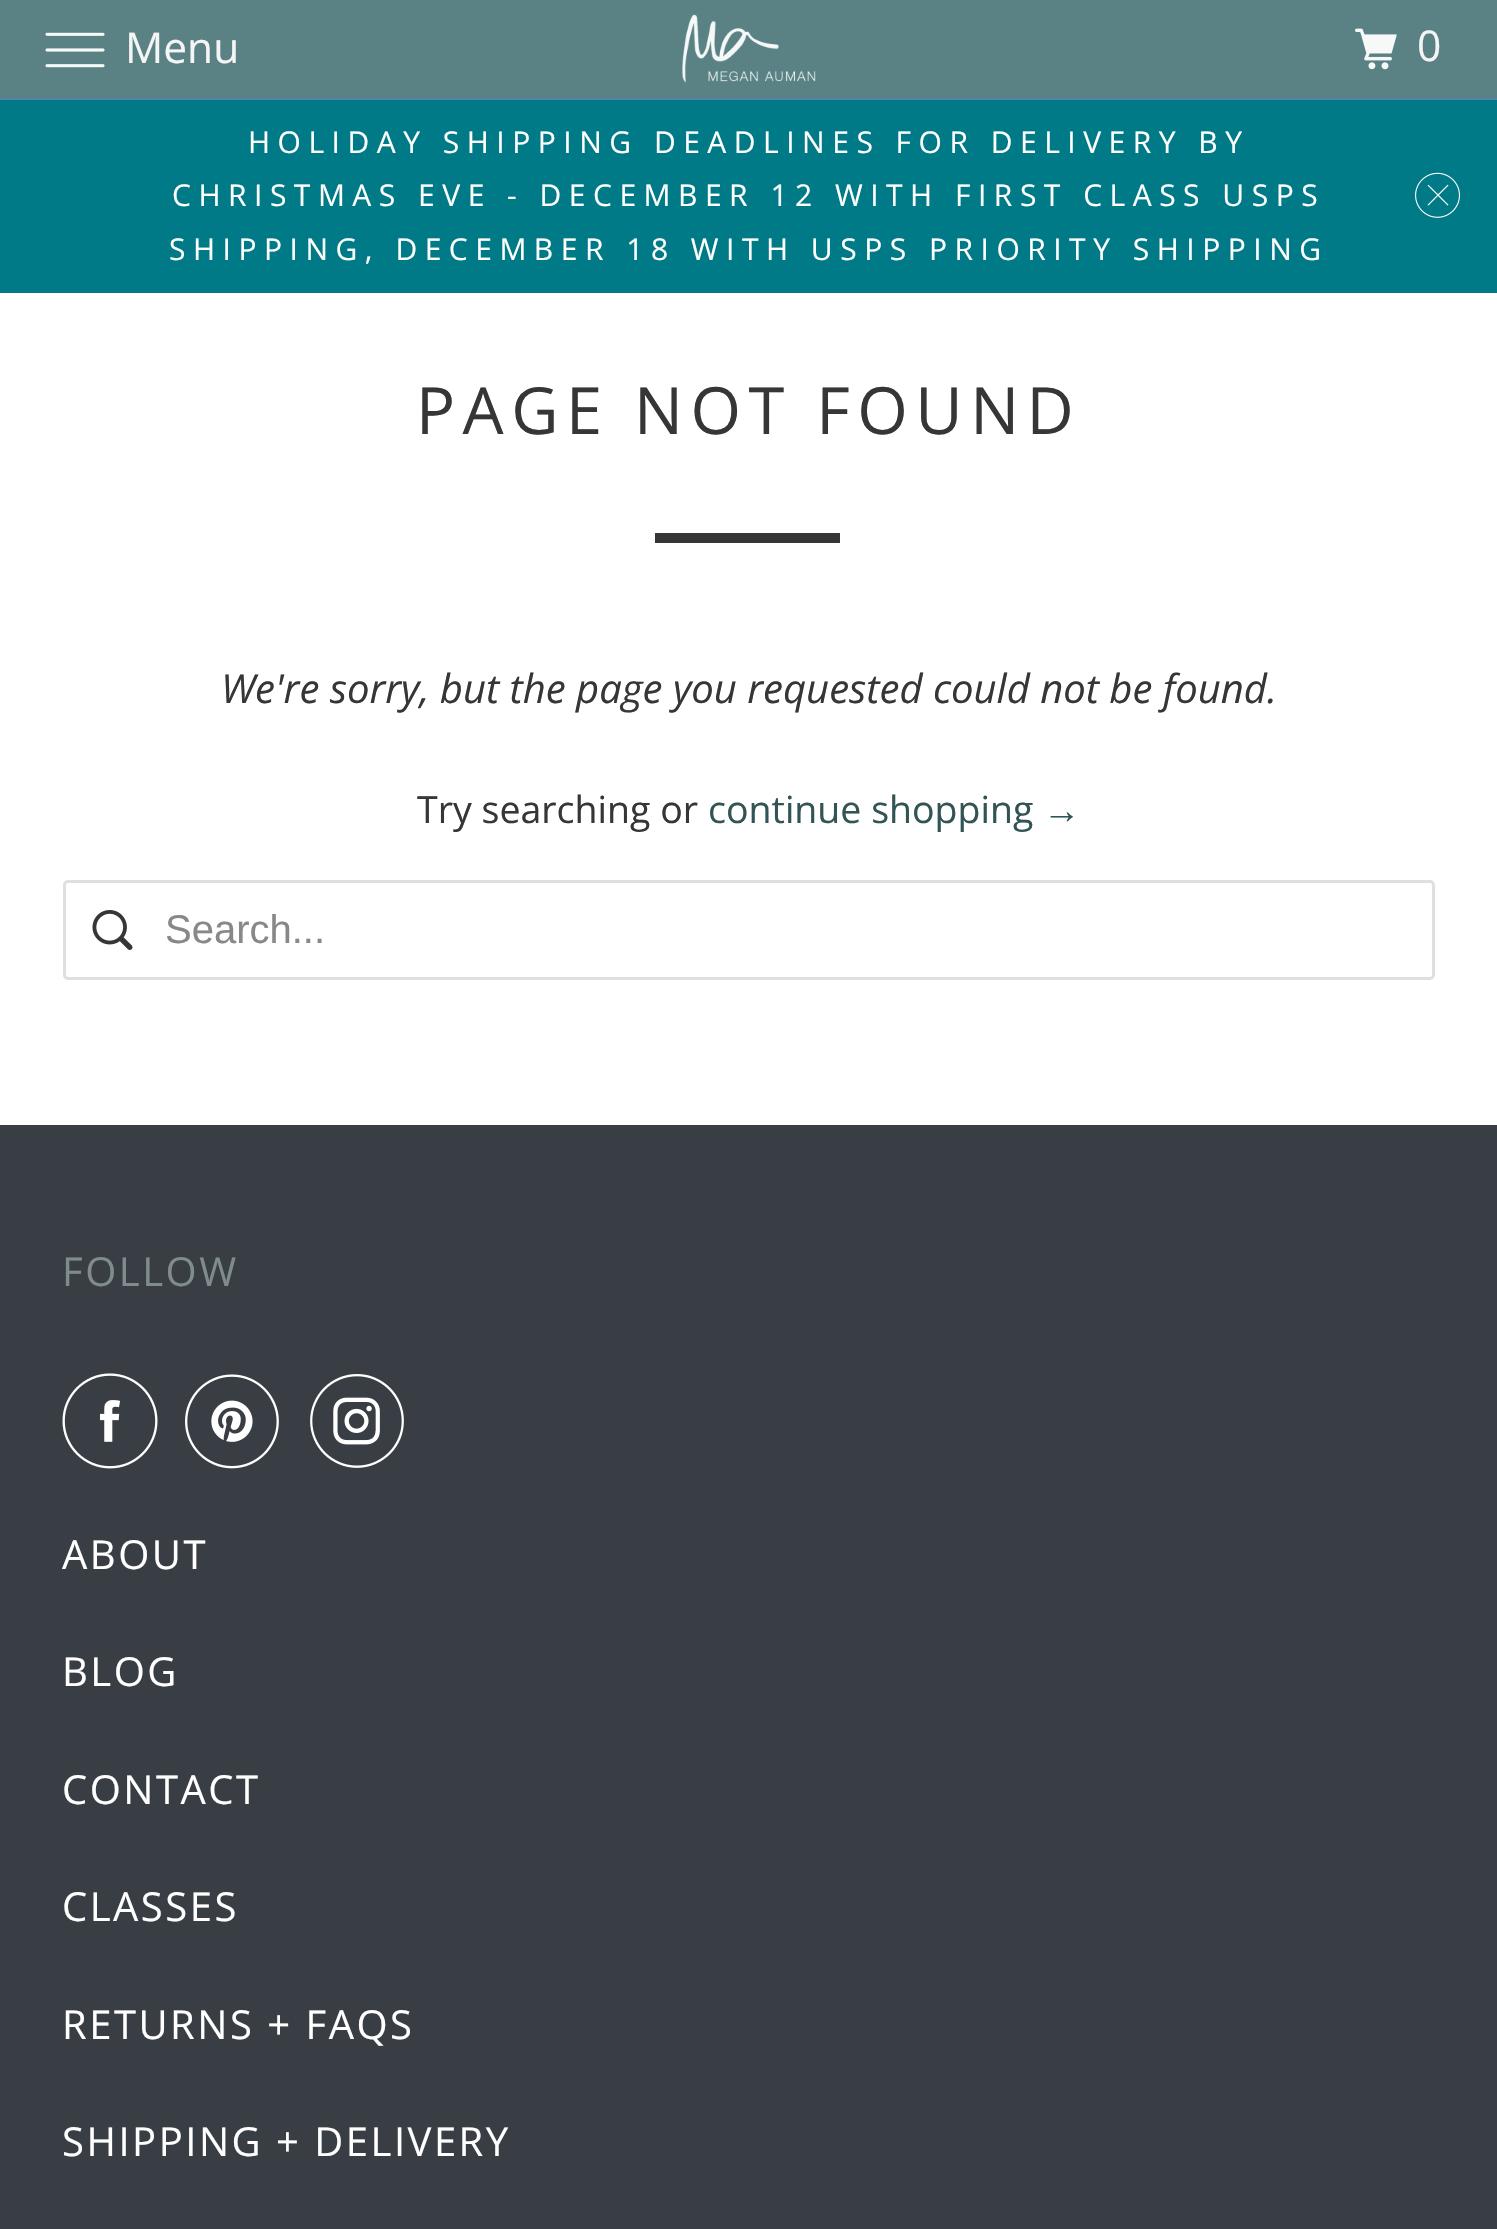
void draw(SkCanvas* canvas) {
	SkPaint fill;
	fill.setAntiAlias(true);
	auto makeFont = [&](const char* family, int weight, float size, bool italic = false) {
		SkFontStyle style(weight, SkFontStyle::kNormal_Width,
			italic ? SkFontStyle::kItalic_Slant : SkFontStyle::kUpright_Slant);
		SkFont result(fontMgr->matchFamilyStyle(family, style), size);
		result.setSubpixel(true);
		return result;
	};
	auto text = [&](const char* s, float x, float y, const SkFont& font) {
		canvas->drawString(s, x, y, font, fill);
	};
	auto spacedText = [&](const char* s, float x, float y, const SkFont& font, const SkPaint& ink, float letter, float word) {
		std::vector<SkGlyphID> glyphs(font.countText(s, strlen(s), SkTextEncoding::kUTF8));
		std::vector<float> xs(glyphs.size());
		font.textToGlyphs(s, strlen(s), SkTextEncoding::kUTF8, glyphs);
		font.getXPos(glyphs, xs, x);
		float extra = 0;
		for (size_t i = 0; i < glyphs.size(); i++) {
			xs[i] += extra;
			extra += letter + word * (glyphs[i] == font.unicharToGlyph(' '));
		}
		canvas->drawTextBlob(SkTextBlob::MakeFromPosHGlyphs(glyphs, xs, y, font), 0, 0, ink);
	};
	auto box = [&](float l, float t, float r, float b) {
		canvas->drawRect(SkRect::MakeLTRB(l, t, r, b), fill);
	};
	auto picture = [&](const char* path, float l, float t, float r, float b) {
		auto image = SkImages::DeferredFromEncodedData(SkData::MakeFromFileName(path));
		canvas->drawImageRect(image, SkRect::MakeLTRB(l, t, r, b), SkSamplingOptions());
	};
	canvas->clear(0xFFFFFFFF);
	fill.setColor(0xFF5A8285);
	box(0, 0, 1497, 98);
	fill.setColor(0xFF5684A5);
	box(0, 98, 1497, 100);
	picture("image0.png", 45, 32, 105, 68);
	picture("image1.png", 682, 14, 816, 83);
	picture("image2.png", 1355, 28, 1397, 70);
	fill.setColor(0xFF007A87);
	box(0, 100, 1497, 293);
	picture("image3.png", 1415, 172, 1460, 218);
	fill.setColor(0xFF363636);
	box(655, 533, 840, 543);
	fill.setStyle(SkPaint::kStroke_Style);
	fill.setStrokeWidth(3);
	fill.setColor(0xFFDFDFDF);
	canvas->drawRoundRect(SkRect::MakeLTRB(64.5f, 881.5f, 1433.5f, 978.5f), 3.5f, 3.5f, fill);
	picture("image4.png", 92, 910, 133, 950);
	fill.setStyle(SkPaint::kFill_Style);
	fill.setColor(0xFF393E45);
	box(0, 1125, 1497, 2229);
	picture("image5.png", 62, 1373, 158, 1469);
	picture("image6.png", 185, 1374, 279, 1469);
	picture("image7.png", 310, 1374, 404, 1468);
	auto font1 = makeFont("Open Sans", 400, 42.5f);
	fill.setColor(0xFFF5F5F6);
	text("Menu", 125, 63, font1);
	text("0", 1417, 61, font1);
	auto font2 = makeFont("Open Sans", 400, 30);
	fill.setColor(0xFFFFFFFF);
	spacedText("HOLIDAY SHIPPING DEADLINES FOR DELIVERY BY", 248, 153, font2, fill, 7.5f, 0);
	spacedText("CHRISTMAS EVE - DECEMBER 12 WITH FIRST CLASS USPS", 172, 206, font2, fill, 7.5f, 0);
	spacedText("SHIPPING, DECEMBER 18 WITH USPS PRIORITY SHIPPING", 169, 260, font2, fill, 7.5f, 0);
	auto font3 = makeFont("Open Sans", 400, 65);
	fill.setColor(0xFF363636);
	spacedText("PAGE NOT FOUND", 416, 434, font3, fill, 7.5f, 0);
	auto font4 = makeFont("Open Sans", 400, 40, true);
	text("We're sorry, but the page you requested could not be found.", 221, 703, font4);
	auto font5 = makeFont("Open Sans", 400, 37.5f);
	text("Try searching or", 417, 823, font5);
	fill.setColor(0xFF335454);
	text("continue shopping", 708, 823, font5);
	auto font6 = makeFont("Liberation Sans", 400, 37.5f);
	text("→", 1043, 823, font6);
	auto font7 = makeFont("Liberation Sans", 400, 40);
	fill.setColor(0xFF888888);
	text("Search...", 165, 943, font7);
	auto font8 = makeFont("Open Sans", 400, 40);
	fill.setColor(0xFF7F8C8D);
	spacedText("FOLLOW", 62, 1286, font8, fill, 2.5f, 0);
	fill.setColor(0xFFFFFFFF);
	spacedText("ABOUT", 62, 1569, font8, fill, 2.5f, 0);
	spacedText("BLOG", 62, 1686, font8, fill, 2.5f, 0);
	spacedText("CONTACT", 62, 1804, font8, fill, 2.5f, 0);
	spacedText("CLASSES", 62, 1921, font8, fill, 2.5f, 0);
	spacedText("RETURNS + FAQS", 62, 2039, font8, fill, 2.5f, 0);
	spacedText("SHIPPING + DELIVERY", 62, 2156, font8, fill, 2.5f, 0);
}
